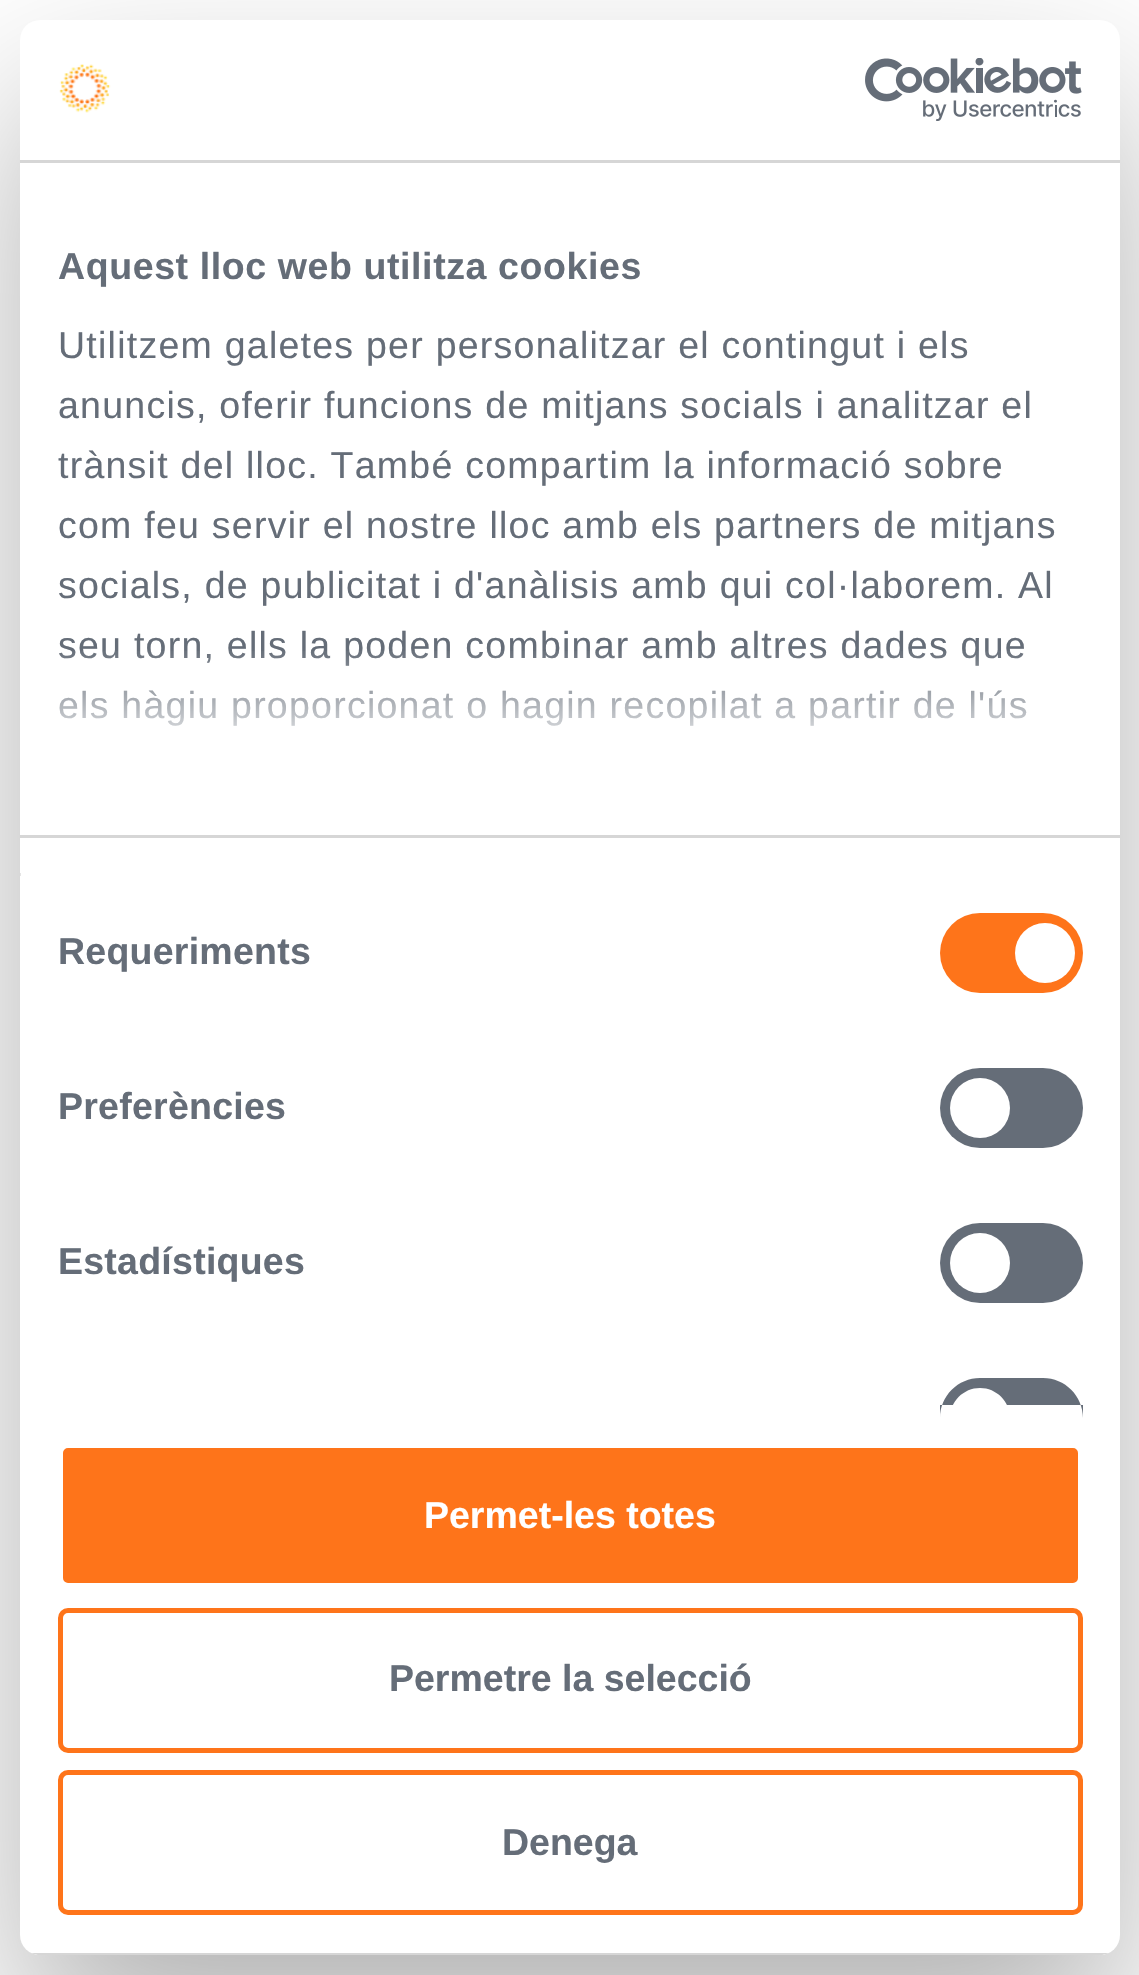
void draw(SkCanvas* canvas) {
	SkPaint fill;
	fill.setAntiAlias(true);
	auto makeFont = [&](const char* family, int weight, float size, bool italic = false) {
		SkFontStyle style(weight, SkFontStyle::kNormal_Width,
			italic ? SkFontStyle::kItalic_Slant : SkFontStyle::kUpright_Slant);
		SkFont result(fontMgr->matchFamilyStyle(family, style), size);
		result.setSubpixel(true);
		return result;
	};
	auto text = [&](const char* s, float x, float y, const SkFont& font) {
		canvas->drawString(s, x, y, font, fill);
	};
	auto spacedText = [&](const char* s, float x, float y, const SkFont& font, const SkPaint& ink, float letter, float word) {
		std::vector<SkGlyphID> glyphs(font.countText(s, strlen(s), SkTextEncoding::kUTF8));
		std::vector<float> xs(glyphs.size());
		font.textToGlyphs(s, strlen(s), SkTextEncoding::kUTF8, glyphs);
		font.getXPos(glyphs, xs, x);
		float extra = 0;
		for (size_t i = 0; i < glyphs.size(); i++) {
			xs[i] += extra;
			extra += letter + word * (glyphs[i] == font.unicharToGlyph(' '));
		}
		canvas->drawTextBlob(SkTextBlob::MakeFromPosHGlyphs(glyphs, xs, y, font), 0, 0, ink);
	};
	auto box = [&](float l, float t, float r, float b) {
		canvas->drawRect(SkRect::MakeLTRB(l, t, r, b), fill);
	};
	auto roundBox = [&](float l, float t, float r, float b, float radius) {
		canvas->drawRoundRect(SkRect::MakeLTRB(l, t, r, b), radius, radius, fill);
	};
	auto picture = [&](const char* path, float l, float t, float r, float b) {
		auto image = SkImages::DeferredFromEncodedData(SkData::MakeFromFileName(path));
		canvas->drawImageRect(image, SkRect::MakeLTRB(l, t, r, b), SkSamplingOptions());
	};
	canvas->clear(0xFFFFFFFF);
	fill.setColor(0x4D000000);
	fill.setMaskFilter(SkMaskFilter::MakeBlur(kNormal_SkBlurStyle, 85));
	canvas->drawRoundRect(SkRect::MakeLTRB(20, 100, 1120, 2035), 20, 20, fill);
	fill.setMaskFilter(nullptr);
	fill.setColor(0xFFFFFFFF);
	roundBox(20, 20, 1120, 1955, 20);
	fill.setColor(0xFFD6D6D6);
	box(20, 160, 1120, 163);
	picture("image0.png", 59, 64, 111, 113);
	picture("image1.png", 865, 58, 1082, 121);
	box(20, 835, 1120, 838);
	fill.setColor(0xFFE5E5E5);
	box(20, 873, 21, 876);
	fill.setColor(0xFFFE741A);
	roundBox(940, 913, 1083, 993, 40);
	fill.setColor(0xFFFFFFFF);
	canvas->drawCircle(1045, 953, 30, fill);
	fill.setColor(0xFF656D78);
	roundBox(940, 1068, 1083, 1148, 40);
	fill.setColor(0xFFFFFFFF);
	canvas->drawCircle(980, 1108, 30, fill);
	fill.setColor(0xFF656D78);
	roundBox(940, 1223, 1083, 1303, 40);
	fill.setColor(0xFFFFFFFF);
	canvas->drawCircle(980, 1263, 30, fill);
	fill.setColor(0xFF656D78);
	canvas->drawPath(SkPathBuilder().moveTo(980, 1378).lineTo(1043, 1378).cubicTo(1065, 1378, 1083, 1396, 1083, 1418).lineTo(1083, 1405).lineTo(940, 1405).lineTo(940, 1418).cubicTo(940, 1396, 958, 1378, 980, 1378).close().detach(), fill);
	fill.setColor(0xFFFFFFFF);
	canvas->drawPath(SkPathBuilder().moveTo(980, 1388).cubicTo(996.5f, 1388, 1010, 1401.5f, 1010, 1418).lineTo(1010, 1405).lineTo(950, 1405).lineTo(950, 1418).cubicTo(950, 1401.5f, 963.5f, 1388, 980, 1388).close().detach(), fill);
	canvas->save();
	canvas->clipPath(SkPathBuilder().moveTo(40, 20).lineTo(1100, 20).cubicTo(1111, 20, 1120, 29, 1120, 40).lineTo(1120, 1935).cubicTo(1120, 1946, 1111, 1955, 1100, 1955).lineTo(40, 1955).cubicTo(29, 1955, 20, 1946, 20, 1935).lineTo(20, 40).cubicTo(20, 29, 29, 20, 40, 20).close().detach(), true);
	fill.setColor(0xFFD6D6D6);
	box(31, 1953, 1109, 1955);
	canvas->restore();
	fill.setColor(0xFFFE741A);
	canvas->drawRoundRect(SkRect::MakeLTRB(60.5f, 1445.5f, 1080.5f, 1585.5f), 7.5f, 7.5f, fill);
	fill.setStyle(SkPaint::kStroke_Style);
	fill.setStrokeWidth(5);
	fill.setColor(0xFFFFFFFF);
	canvas->drawRoundRect(SkRect::MakeLTRB(60.5f, 1445.5f, 1080.5f, 1585.5f), 7.5f, 7.5f, fill);
	fill.setColor(0xFFFE741A);
	canvas->drawRoundRect(SkRect::MakeLTRB(60.5f, 1610.5f, 1080.5f, 1750.5f), 7.5f, 7.5f, fill);
	canvas->drawRoundRect(SkRect::MakeLTRB(60.5f, 1772.5f, 1080.5f, 1912.5f), 7.5f, 7.5f, fill);
	auto font1 = makeFont("Liberation Sans", 700, 37.5f);
	fill.setStyle(SkPaint::kFill_Style);
	fill.setColor(0xFF656D78);
	spacedText("Aquest lloc web utilitza cookies", 58, 279, font1, fill, 0.6f, 0);
	auto font2 = makeFont("Liberation Sans", 400, 37.5f);
	spacedText("Utilitzem galetes per personalitzar el contingut i els", 58, 358, font2, fill, 1.25f, 0);
	spacedText("anuncis, oferir funcions de mitjans socials i analitzar el", 58, 418, font2, fill, 1.25f, 0);
	spacedText("trànsit del lloc. També compartim la informació sobre", 58, 478, font2, fill, 1.25f, 0);
	spacedText("com feu servir el nostre lloc amb els partners de mitjans", 58, 538, font2, fill, 1.25f, 0);
	spacedText("socials, de publicitat i d'anàlisis amb qui col·laborem. Al", 58, 598, font2, fill, 1.25f, 0);
	spacedText("seu torn, ells la poden combinar amb altres dades que", 58, 658, font2, fill, 1.25f, 0);
	spacedText("els hàgiu proporcionat o hagin recopilat a partir de l'ús", 58, 718, font2, fill, 1.25f, 0);
	{
		const SkColor colors[] = {0xFFFFFFFF, 0xCCFFFFFF, 0x00FFFFFF};
		const float stops[] = {0, 0.5f, 1};
		const SkPoint ends[] = {{554, 835}, {554, 648}};
		fill.setShader(SkGradientShader::MakeLinear(ends, colors, stops, 3, SkTileMode::kClamp));
		fill.setAlpha(255);
	}
	box(59, 651, 1026, 726);
	fill.setShader(nullptr);
	fill.setColor(0xFF656D78);
	spacedText("Requeriments", 58, 964, font1, fill, 0.25f, 0);
	spacedText("Preferències", 58, 1119, font1, fill, 0.25f, 0);
	spacedText("Estadístiques", 58, 1274, font1, fill, 0.25f, 0);
	fill.setColor(0xFFFFFFFF);
	text("Permet-les totes", 424, 1528, font1);
	fill.setColor(0xFF656D78);
	text("Permetre la selecció", 389, 1691, font1);
	text("Denega", 502, 1855, font1);
}
